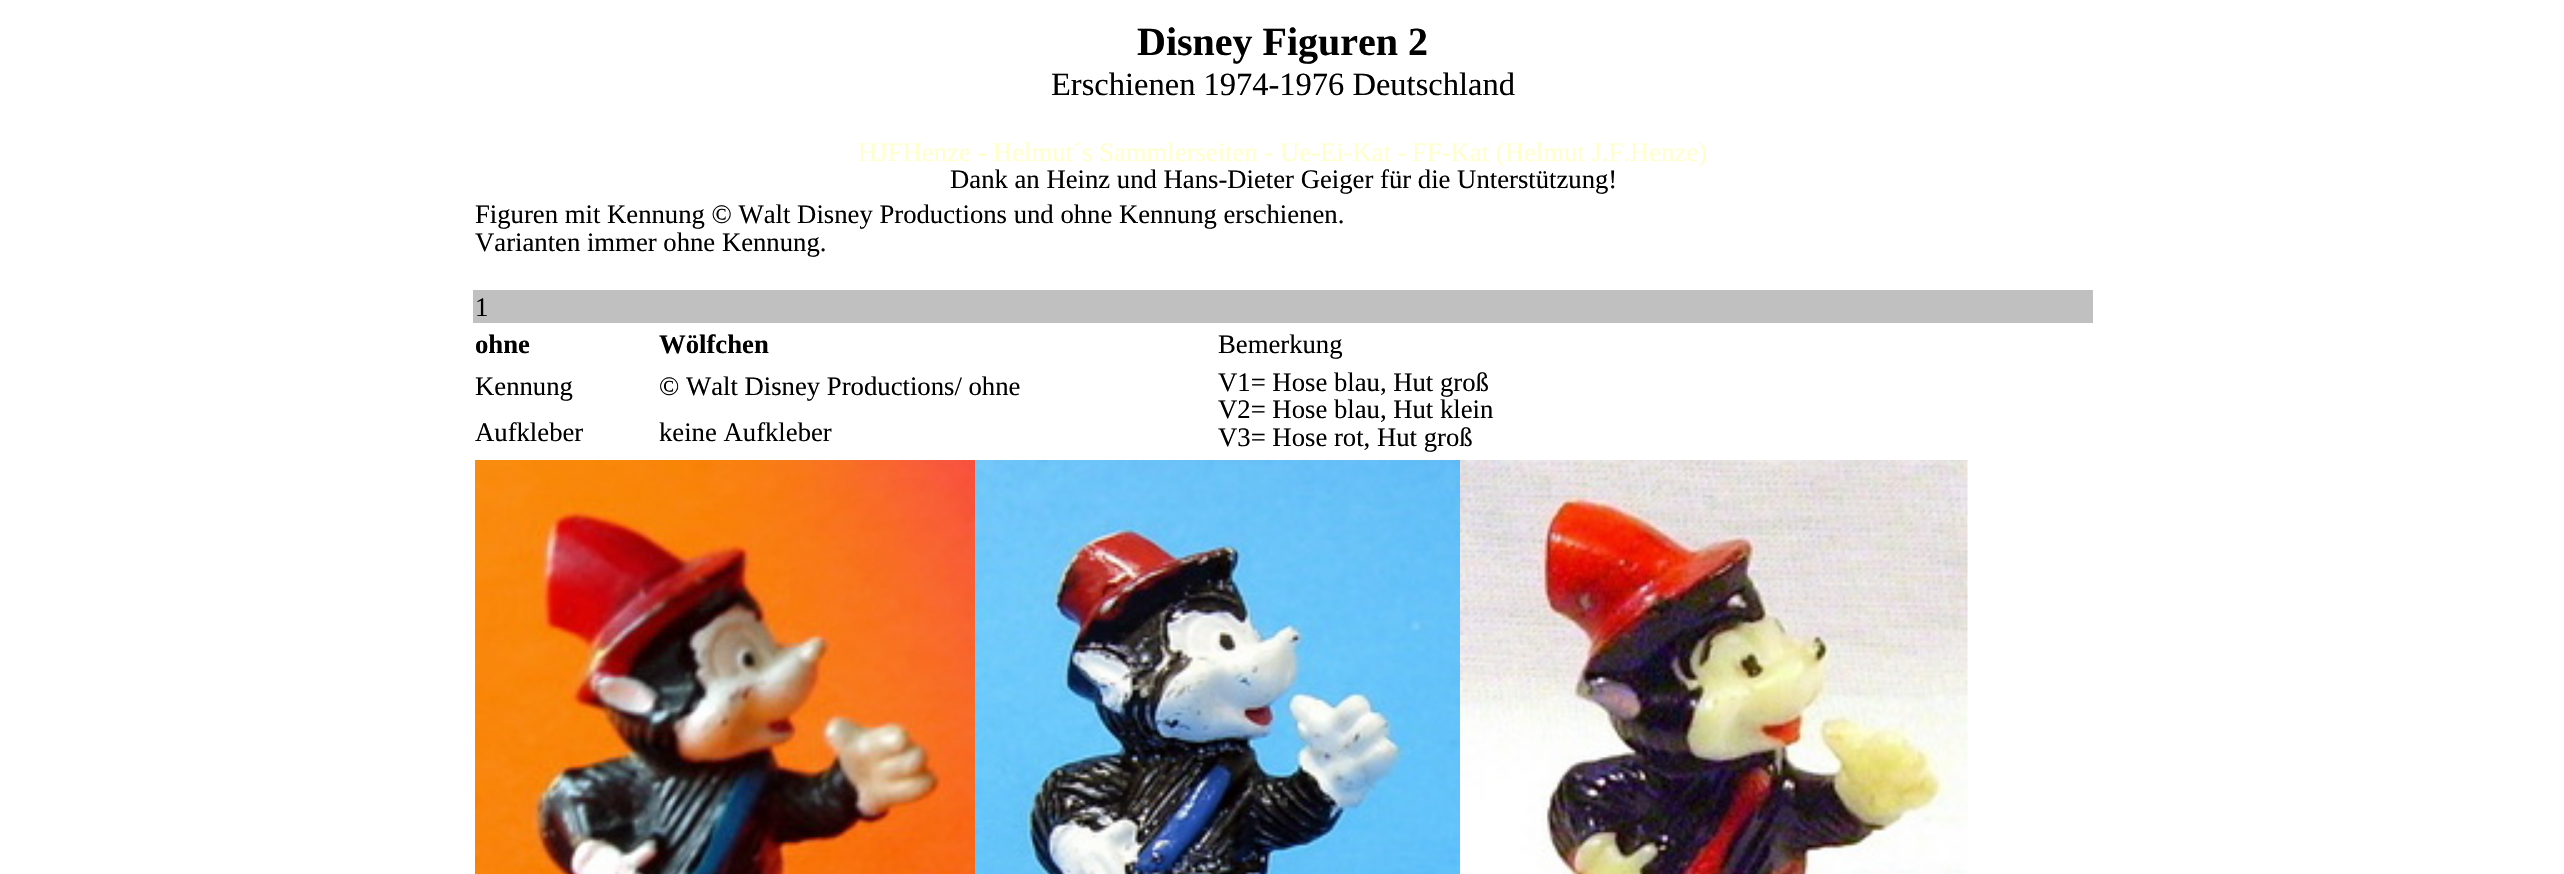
void draw(SkCanvas* canvas) {
	SkPaint fill;
	fill.setAntiAlias(true);
	auto makeFont = [&](const char* family, int weight, float size, bool italic = false) {
		SkFontStyle style(weight, SkFontStyle::kNormal_Width,
			italic ? SkFontStyle::kItalic_Slant : SkFontStyle::kUpright_Slant);
		SkFont result(fontMgr->matchFamilyStyle(family, style), size);
		result.setSubpixel(true);
		return result;
	};
	auto text = [&](const char* s, float x, float y, const SkFont& font) {
		canvas->drawString(s, x, y, font, fill);
	};
	auto box = [&](float l, float t, float r, float b) {
		canvas->drawRect(SkRect::MakeLTRB(l, t, r, b), fill);
	};
	auto picture = [&](const char* path, float l, float t, float r, float b) {
		auto image = SkImages::DeferredFromEncodedData(SkData::MakeFromFileName(path));
		canvas->drawImageRect(image, SkRect::MakeLTRB(l, t, r, b), SkSamplingOptions());
	};
	canvas->clear(0xFFFFFFFF);
	fill.setColor(0xFFC0C0C0);
	box(473, 290, 2093, 323);
	picture("image0.png", 475, 460, 975, 874);
	picture("image1.png", 975, 460, 1460, 874);
	picture("image2.png", 1460, 460, 1968, 874);
	auto font1 = makeFont("Liberation Serif", 700, 40);
	fill.setColor(0xFF000000);
	text("Disney Figuren 2", 1137, 55, font1);
	auto font2 = makeFont("Liberation Serif", 400, 32.5f);
	text("Erschienen 1974-1976 Deutschland", 1051, 95, font2);
	auto font3 = makeFont("Liberation Serif", 400, 26.7f);
	fill.setColor(0xFFFFFFCC);
	text("HJFHenze - Helmut´s Sammlerseiten - Ue-Ei-Kat -", 858, 161, font3);
	text("FF-Kat (Helmut J.F.Henze)", 1412, 161, font3);
	fill.setColor(0xFF000000);
	text("Dank an Heinz und Hans-Dieter Geiger für die Unterstützung!", 950, 188, font3);
	text("Figuren mit Kennung © Walt Disney Productions und ohne Kennung erschienen.", 475, 223, font3);
	text("Varianten immer ohne Kennung.", 475, 251, font3);
	text("1", 475, 316, font3);
	auto font4 = makeFont("Liberation Serif", 700, 26.7f);
	text("ohne", 475, 353, font4);
	text("Wölfchen", 659, 353, font4);
	text("Bemerkung", 1218, 353, font3);
	text("Kennung", 475, 395, font3);
	text("© Walt Disney Productions/ ohne", 659, 395, font3);
	text("V1= Hose blau, Hut groß", 1218, 391, font3);
	text("V2= Hose blau, Hut klein", 1218, 418, font3);
	text("V3= Hose rot, Hut groß", 1218, 446, font3);
	text("Aufkleber", 475, 441, font3);
	text("keine Aufkleber", 659, 441, font3);
}
